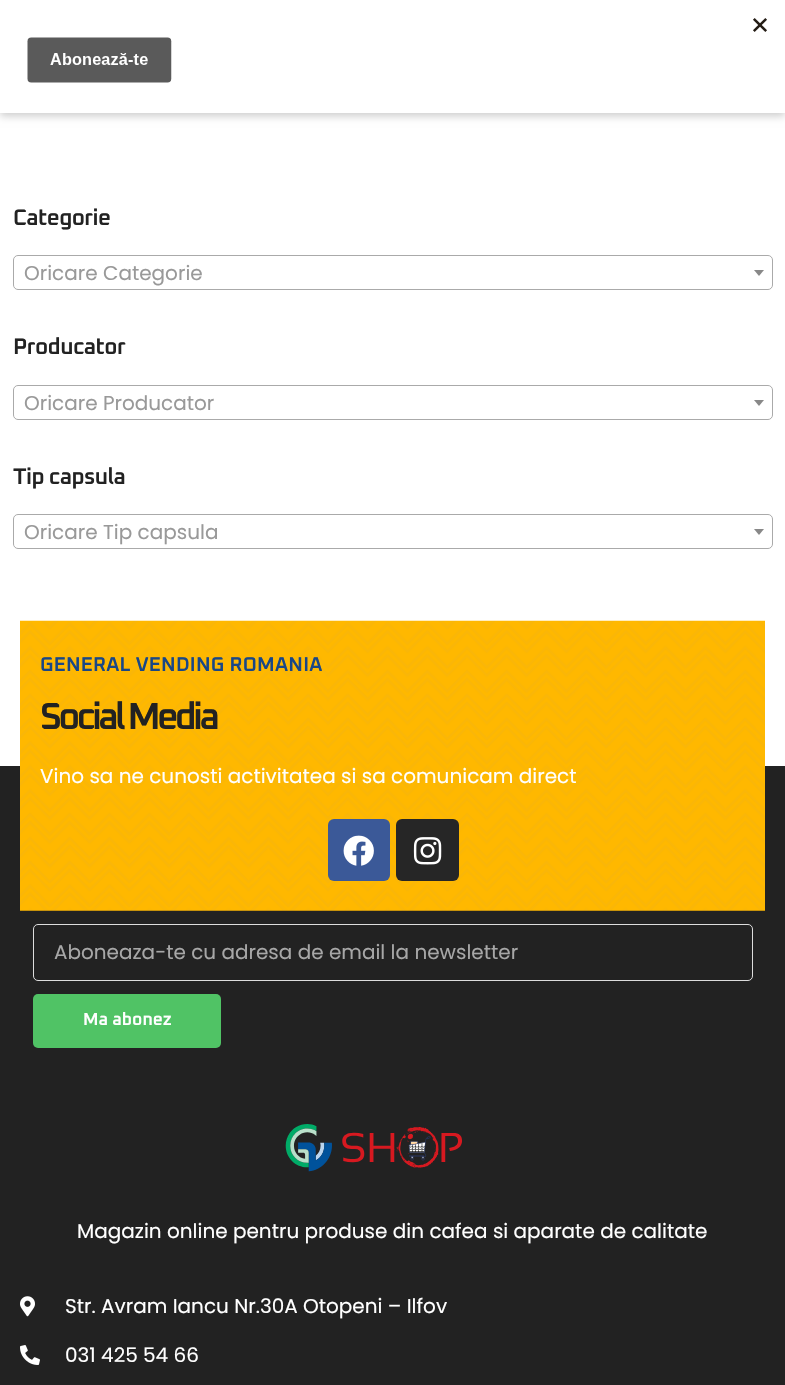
void draw(SkCanvas* canvas) {
	SkPaint fill;
	fill.setAntiAlias(true);
	auto makeFont = [&](const char* family, int weight, float size, bool italic = false) {
		SkFontStyle style(weight, SkFontStyle::kNormal_Width,
			italic ? SkFontStyle::kItalic_Slant : SkFontStyle::kUpright_Slant);
		SkFont result(fontMgr->matchFamilyStyle(family, style), size);
		result.setSubpixel(true);
		return result;
	};
	auto text = [&](const char* s, float x, float y, const SkFont& font) {
		canvas->drawString(s, x, y, font, fill);
	};
	auto spacedText = [&](const char* s, float x, float y, const SkFont& font, const SkPaint& ink, float letter, float word) {
		std::vector<SkGlyphID> glyphs(font.countText(s, strlen(s), SkTextEncoding::kUTF8));
		std::vector<float> xs(glyphs.size());
		font.textToGlyphs(s, strlen(s), SkTextEncoding::kUTF8, glyphs);
		font.getXPos(glyphs, xs, x);
		float extra = 0;
		for (size_t i = 0; i < glyphs.size(); i++) {
			xs[i] += extra;
			extra += letter + word * (glyphs[i] == font.unicharToGlyph(' '));
		}
		canvas->drawTextBlob(SkTextBlob::MakeFromPosHGlyphs(glyphs, xs, y, font), 0, 0, ink);
	};
	auto box = [&](float l, float t, float r, float b) {
		canvas->drawRect(SkRect::MakeLTRB(l, t, r, b), fill);
	};
	auto roundBox = [&](float l, float t, float r, float b, float radius) {
		canvas->drawRoundRect(SkRect::MakeLTRB(l, t, r, b), radius, radius, fill);
	};
	auto picture = [&](const char* path, float l, float t, float r, float b) {
		auto image = SkImages::DeferredFromEncodedData(SkData::MakeFromFileName(path));
		canvas->drawImageRect(image, SkRect::MakeLTRB(l, t, r, b), SkSamplingOptions());
	};
	canvas->clear(0xFFFFFFFF);
	fill.setColor(0x33000000);
	fill.setMaskFilter(SkMaskFilter::MakeBlur(kNormal_SkBlurStyle, 4));
	canvas->drawRect(SkRect::MakeLTRB(0, 4, 785, 116), fill);
	fill.setMaskFilter(nullptr);
	fill.setColor(0xFFFFFFFF);
	box(0, 0, 785, 113);
	picture("image0.png", 27, 18, 767, 83);
	fill.setStyle(SkPaint::kStroke_Style);
	fill.setStrokeWidth(1);
	fill.setColor(0xFFAAAAAA);
	canvas->drawRoundRect(SkRect::MakeLTRB(13.5f, 255.5f, 772.5f, 289.5f), 4.5f, 4.5f, fill);
	fill.setStyle(SkPaint::kFill_Style);
	fill.setColor(0xFF888888);
	canvas->drawPath(SkPathBuilder().moveTo(754, 270).lineTo(764, 270).lineTo(759, 276).close().detach(), fill);
	fill.setStyle(SkPaint::kStroke_Style);
	fill.setColor(0xFFAAAAAA);
	canvas->drawRoundRect(SkRect::MakeLTRB(13.5f, 385.5f, 772.5f, 419.5f), 4.5f, 4.5f, fill);
	fill.setStyle(SkPaint::kFill_Style);
	fill.setColor(0xFF888888);
	canvas->drawPath(SkPathBuilder().moveTo(754, 400).lineTo(764, 400).lineTo(759, 406).close().detach(), fill);
	fill.setStyle(SkPaint::kStroke_Style);
	fill.setColor(0xFFAAAAAA);
	canvas->drawRoundRect(SkRect::MakeLTRB(13.5f, 514.5f, 772.5f, 548.5f), 4.5f, 4.5f, fill);
	fill.setStyle(SkPaint::kFill_Style);
	fill.setColor(0xFF888888);
	canvas->drawPath(SkPathBuilder().moveTo(754, 529).lineTo(764, 529).lineTo(759, 535).close().detach(), fill);
	fill.setColor(0xFF222222);
	box(0, 766, 785, 1385);
	picture("image1.png", 20, 620, 765, 911);
	fill.setColor(0xFF3B5998);
	roundBox(328, 819, 390, 881, 6);
	picture("image2.png", 343, 835, 374, 866);
	fill.setColor(0xFF262626);
	roundBox(396, 819, 459, 881, 6);
	picture("image3.png", 413, 837, 442, 865);
	fill.setStyle(SkPaint::kStroke_Style);
	fill.setColor(0xFFDDDDDD);
	canvas->drawRoundRect(SkRect::MakeLTRB(33.5f, 924.5f, 752.5f, 980.5f), 4.5f, 4.5f, fill);
	fill.setStyle(SkPaint::kFill_Style);
	fill.setColor(0xFF50C365);
	roundBox(33, 994, 221, 1048, 5);
	picture("image4.png", 285, 1124, 462, 1172);
	picture("image5.png", 20, 1296, 35, 1317);
	picture("image6.png", 20, 1345, 40, 1365);
	auto font1 = makeFont("Oxanium", 600, 22.5f);
	fill.setColor(0xFF222222);
	spacedText("Categorie", 13, 225, font1, fill, -0.6f, 0);
	auto font2 = makeFont("Poppins", 400, 20);
	fill.setColor(0xFF999999);
	text("Oricare Categorie", 24, 280, font2);
	fill.setColor(0xFF222222);
	spacedText("Producator", 13, 354, font1, fill, -0.6f, 0);
	fill.setColor(0xFF999999);
	text("Oricare Producator", 24, 410, font2);
	fill.setColor(0xFF222222);
	spacedText("Tip capsula", 13, 484, font1, fill, -0.6f, 0);
	fill.setColor(0xFF999999);
	text("Oricare Tip capsula", 24, 539, font2);
	auto font3 = makeFont("Oxanium", 600, 20);
	fill.setColor(0xFF194787);
	spacedText("GENERAL VENDING ROMANIA", 40, 671, font3, fill, 0.25f, 0);
	auto font4 = makeFont("Oxanium", 600, 37.5f);
	fill.setColor(0xFF222222);
	spacedText("Social Media", 40, 729, font4, fill, -3.75f, 0);
	fill.setColor(0xFFFFFFFF);
	text("Vino sa ne cunosti activitatea si sa comunicam direct", 40, 783, font2);
	fill.setColor(0xFFA7A7A7);
	text("Aboneaza-te cu adresa de email la newsletter", 54, 959, font2);
	auto font5 = makeFont("Oxanium", 600, 17.5f);
	fill.setColor(0xFFFFFFFF);
	text("Ma abonez", 83, 1025, font5);
	text("Magazin online pentru produse din cafea si aparate de calitate", 77, 1238, font2);
	text("Str. Avram Iancu Nr.30A Otopeni – Ilfov", 65, 1313, font2);
	text("031 425 54 66", 65, 1362, font2);
}
